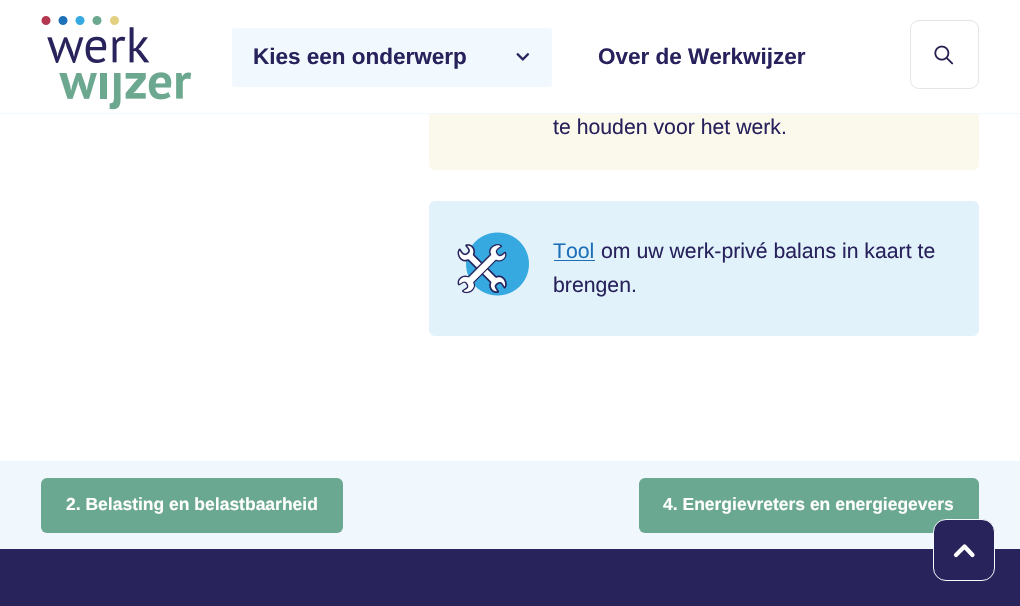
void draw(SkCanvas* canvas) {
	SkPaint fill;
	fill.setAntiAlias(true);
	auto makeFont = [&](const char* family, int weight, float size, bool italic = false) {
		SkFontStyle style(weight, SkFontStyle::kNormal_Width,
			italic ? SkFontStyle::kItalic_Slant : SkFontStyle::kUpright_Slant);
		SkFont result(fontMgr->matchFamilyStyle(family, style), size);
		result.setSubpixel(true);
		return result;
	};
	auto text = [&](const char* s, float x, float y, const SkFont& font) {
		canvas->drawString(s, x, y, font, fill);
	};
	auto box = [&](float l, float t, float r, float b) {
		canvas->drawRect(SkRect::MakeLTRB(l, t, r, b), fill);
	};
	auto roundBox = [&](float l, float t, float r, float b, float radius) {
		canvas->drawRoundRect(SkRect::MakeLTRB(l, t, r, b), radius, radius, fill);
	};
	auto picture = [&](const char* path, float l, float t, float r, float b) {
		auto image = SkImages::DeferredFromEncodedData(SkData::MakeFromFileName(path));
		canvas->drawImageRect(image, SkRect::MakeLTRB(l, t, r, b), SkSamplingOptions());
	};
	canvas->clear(0xFFFFFFFF);
	fill.setColor(0xFFFBF8EC);
	roundBox(429, -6, 979, 170, 6);
	fill.setColor(0xFFFFFFFF);
	box(429, 0, 979, 113);
	fill.setColor(0xFFF2F9FE);
	box(0, 113, 1020, 114);
	picture("image0.png", 41, 16, 191, 110);
	canvas->drawRoundRect(SkRect::MakeLTRB(230.5f, 26.5f, 553.5f, 88.5f), 4.5f, 4.5f, fill);
	fill.setStyle(SkPaint::kStroke_Style);
	fill.setStrokeWidth(3);
	fill.setColor(0xFFFFFFFF);
	canvas->drawRoundRect(SkRect::MakeLTRB(230.5f, 26.5f, 553.5f, 88.5f), 4.5f, 4.5f, fill);
	picture("image1.png", 516, 53, 530, 61);
	fill.setStrokeWidth(1);
	fill.setColor(0xFFE5E5E5);
	canvas->drawRoundRect(SkRect::MakeLTRB(910.5f, 20.5f, 978.5f, 88.5f), 8.5f, 8.5f, fill);
	picture("image2.png", 934, 45, 954, 65);
	fill.setStyle(SkPaint::kFill_Style);
	fill.setColor(0xFFE1F2FB);
	roundBox(429, 201, 979, 336, 6);
	picture("image3.png", 457, 232, 529, 296);
	fill.setColor(0xFF1D70B7);
	box(554, 260, 595, 261);
	fill.setColor(0xFFF0F8FE);
	box(0, 461, 1020, 549);
	fill.setColor(0xFF6BA891);
	roundBox(41, 478, 343, 533, 6);
	roundBox(639, 478, 979, 533, 6);
	fill.setColor(0xFF29235C);
	box(0, 549, 1020, 606);
	canvas->drawRoundRect(SkRect::MakeLTRB(933.5f, 519.5f, 994.5f, 580.5f), 12.5f, 12.5f, fill);
	fill.setStyle(SkPaint::kStroke_Style);
	fill.setColor(0xFFF4F9FC);
	canvas->drawRoundRect(SkRect::MakeLTRB(933.5f, 519.5f, 994.5f, 580.5f), 12.5f, 12.5f, fill);
	fill.setStrokeWidth(4.2f);
	fill.setStrokeCap(SkPaint::kRound_Cap);
	fill.setStrokeJoin(SkPaint::kRound_Join);
	fill.setColor(0xFFFFFFFF);
	canvas->drawPath(SkPathBuilder().moveTo(972.5f, 555).lineTo(964.5f, 546.5f).lineTo(956, 555).detach(), fill);
	auto font1 = makeFont("Liberation Sans", 700, 22.5f);
	fill.setStyle(SkPaint::kFill_Style);
	fill.setColor(0xFF28225C);
	text("Kies een onderwerp", 253, 64, font1);
	text("Over de Werkwijzer", 598, 64, font1);
	auto font2 = makeFont("Liberation Sans", 400, 21.25f);
	text("te houden voor het werk.", 553, 134, font2);
	fill.setColor(0xFF1D70B7);
	text("Tool", 553, 258, font2);
	fill.setColor(0xFF28225C);
	text("om uw werk-privé balans in kaart te", 601, 258, font2);
	text("brengen.", 553, 292, font2);
	auto font3 = makeFont("Liberation Sans", 700, 17.5f);
	fill.setColor(0xFFFFFFFF);
	text("2. Belasting en belastbaarheid", 66, 510, font3);
	text("4. Energievreters en energiegevers", 663, 510, font3);
}
